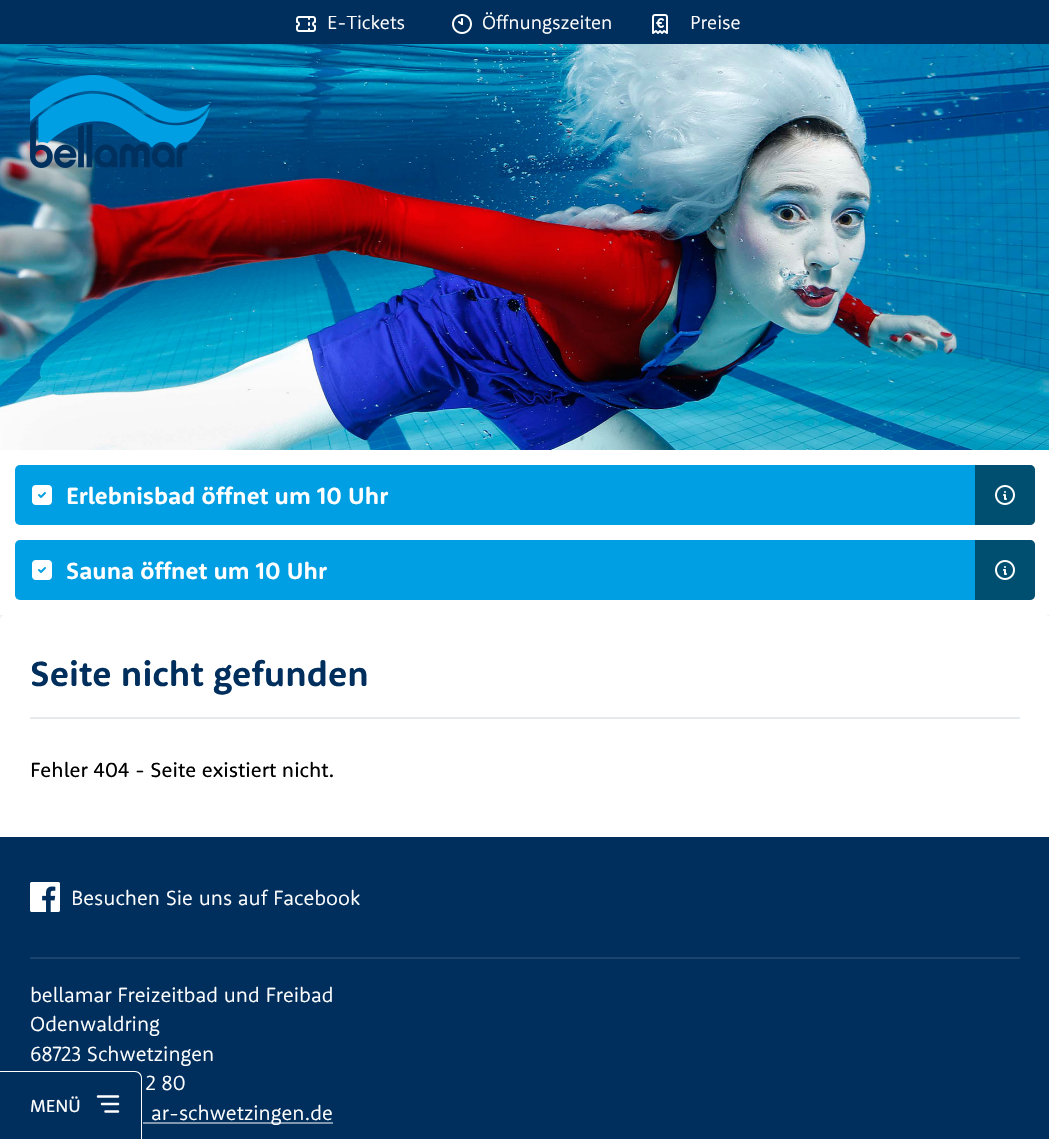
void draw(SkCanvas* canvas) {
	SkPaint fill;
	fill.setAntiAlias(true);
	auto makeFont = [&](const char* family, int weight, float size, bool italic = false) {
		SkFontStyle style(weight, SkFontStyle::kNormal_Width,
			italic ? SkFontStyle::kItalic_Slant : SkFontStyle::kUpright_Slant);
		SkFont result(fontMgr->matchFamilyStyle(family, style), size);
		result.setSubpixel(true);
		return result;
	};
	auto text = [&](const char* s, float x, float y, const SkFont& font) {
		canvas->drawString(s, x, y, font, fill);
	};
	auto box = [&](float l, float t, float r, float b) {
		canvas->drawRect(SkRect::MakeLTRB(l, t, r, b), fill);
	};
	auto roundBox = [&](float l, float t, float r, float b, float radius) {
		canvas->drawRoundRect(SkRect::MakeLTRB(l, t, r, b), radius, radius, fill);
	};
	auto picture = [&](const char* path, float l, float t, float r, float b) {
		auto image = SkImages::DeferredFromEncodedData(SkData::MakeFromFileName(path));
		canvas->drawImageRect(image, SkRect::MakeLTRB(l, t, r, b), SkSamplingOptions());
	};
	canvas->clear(0xFFEEF1F3);
	picture("image0.png", 0, 44, 1049, 450);
	fill.setColor(0xFF002F5D);
	box(0, 0, 1049, 44);
	picture("image1.png", 296, 16, 316, 32);
	picture("image2.png", 452, 14, 472, 34);
	picture("image3.png", 652, 14, 668, 34);
	picture("image4.png", 30, 75, 210, 168);
	box(0, 837, 1049, 1139);
	fill.setStyle(SkPaint::kStroke_Style);
	fill.setStrokeWidth(2.5f);
	fill.setStrokeCap(SkPaint::kRound_Cap);
	fill.setStrokeJoin(SkPaint::kRound_Join);
	fill.setColor(0xFFFFFFFF);
	canvas->drawPath(SkPathBuilder().moveTo(98, 1096.5f).lineTo(118, 1096.5f).moveTo(102, 1104).lineTo(118, 1104).moveTo(105.5f, 1111.5f).lineTo(118, 1111.5f).detach(), fill);
	fill.setStyle(SkPaint::kFill_Style);
	canvas->drawPath(SkPathBuilder(SkPathFillType::kEvenOdd).moveTo(0, 1071).lineTo(135, 1071).cubicTo(139, 1071, 142, 1074, 142, 1078).lineTo(142, 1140).lineTo(0, 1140).close().moveTo(0, 1072).lineTo(135, 1072).cubicTo(138, 1072, 141, 1075, 141, 1078).lineTo(141, 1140).lineTo(0, 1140).close().detach(), fill);
	box(0, 450, 1049, 615);
	fill.setColor(0xFF009EE2);
	roundBox(15, 465, 1035, 525, 5);
	picture("image5.png", 32, 485, 52, 505);
	fill.setColor(0x80000000);
	canvas->drawPath(SkPathBuilder().moveTo(975, 465).lineTo(1030, 465).cubicTo(1033, 465, 1035, 467, 1035, 470).lineTo(1035, 520).cubicTo(1035, 523, 1033, 525, 1030, 525).lineTo(975, 525).close().detach(), fill);
	picture("image6.png", 995, 485, 1015, 505);
	fill.setColor(0xFF009EE2);
	roundBox(15, 540, 1035, 600, 5);
	picture("image5.png", 32, 560, 52, 580);
	fill.setColor(0x80000000);
	canvas->drawPath(SkPathBuilder().moveTo(975, 540).lineTo(1030, 540).cubicTo(1033, 540, 1035, 542, 1035, 545).lineTo(1035, 595).cubicTo(1035, 598, 1033, 600, 1030, 600).lineTo(975, 600).close().detach(), fill);
	picture("image6.png", 995, 560, 1015, 580);
	fill.setColor(0xFFFFFFFF);
	canvas->drawPath(SkPathBuilder().moveTo(5, 615).lineTo(1045, 615).cubicTo(1048, 615, 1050, 617, 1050, 620).lineTo(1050, 837).lineTo(0, 837).lineTo(0, 620).cubicTo(0, 617, 2, 615, 5, 615).close().detach(), fill);
	fill.setColor(0xFFE5EAEF);
	box(30, 717, 1020, 719);
	picture("image7.png", 30, 882, 60, 912);
	fill.setColor(0xFF1A446D);
	box(30, 957, 1020, 959);
	fill.setColor(0xFF8097AE);
	box(143, 1122, 333, 1124);
	auto font1 = makeFont("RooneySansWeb", 300, 19.5f);
	fill.setColor(0xFFFFFFFF);
	text("E-Tickets", 327, 29, font1);
	text("Öffnungszeiten", 482, 29, font1);
	text("Preise", 690, 29, font1);
	auto font2 = makeFont("RooneySansWeb", 400, 18);
	text("MENÜ", 30, 1112, font2);
	auto font3 = makeFont("RooneySansWeb", 700, 24);
	text("Erlebnisbad öffnet um 10 Uhr", 66, 504, font3);
	text("Sauna öffnet um 10 Uhr", 66, 579, font3);
	auto font4 = makeFont("RooneySansWeb", 700, 36);
	fill.setColor(0xFF002F5D);
	text("Seite nicht gefunden", 30, 686, font4);
	auto font5 = makeFont("RooneySansWeb", 400, 21);
	fill.setColor(0xFF000000);
	text("Fehler 404 - Seite existiert nicht.", 30, 777, font5);
	auto font6 = makeFont("RooneySansWeb", 300, 21);
	fill.setColor(0xFFFFFFFF);
	text("Besuchen Sie uns auf Facebook", 71, 905, font6);
	text("bellamar Freizeitbad und Freibad", 30, 1002, font6);
	text("Odenwaldring", 30, 1031, font6);
	text("68723 Schwetzingen", 30, 1061, font6);
	text("2 80", 146, 1090, font6);
	text("ar-schwetzingen.de", 151, 1120, font6);
}
